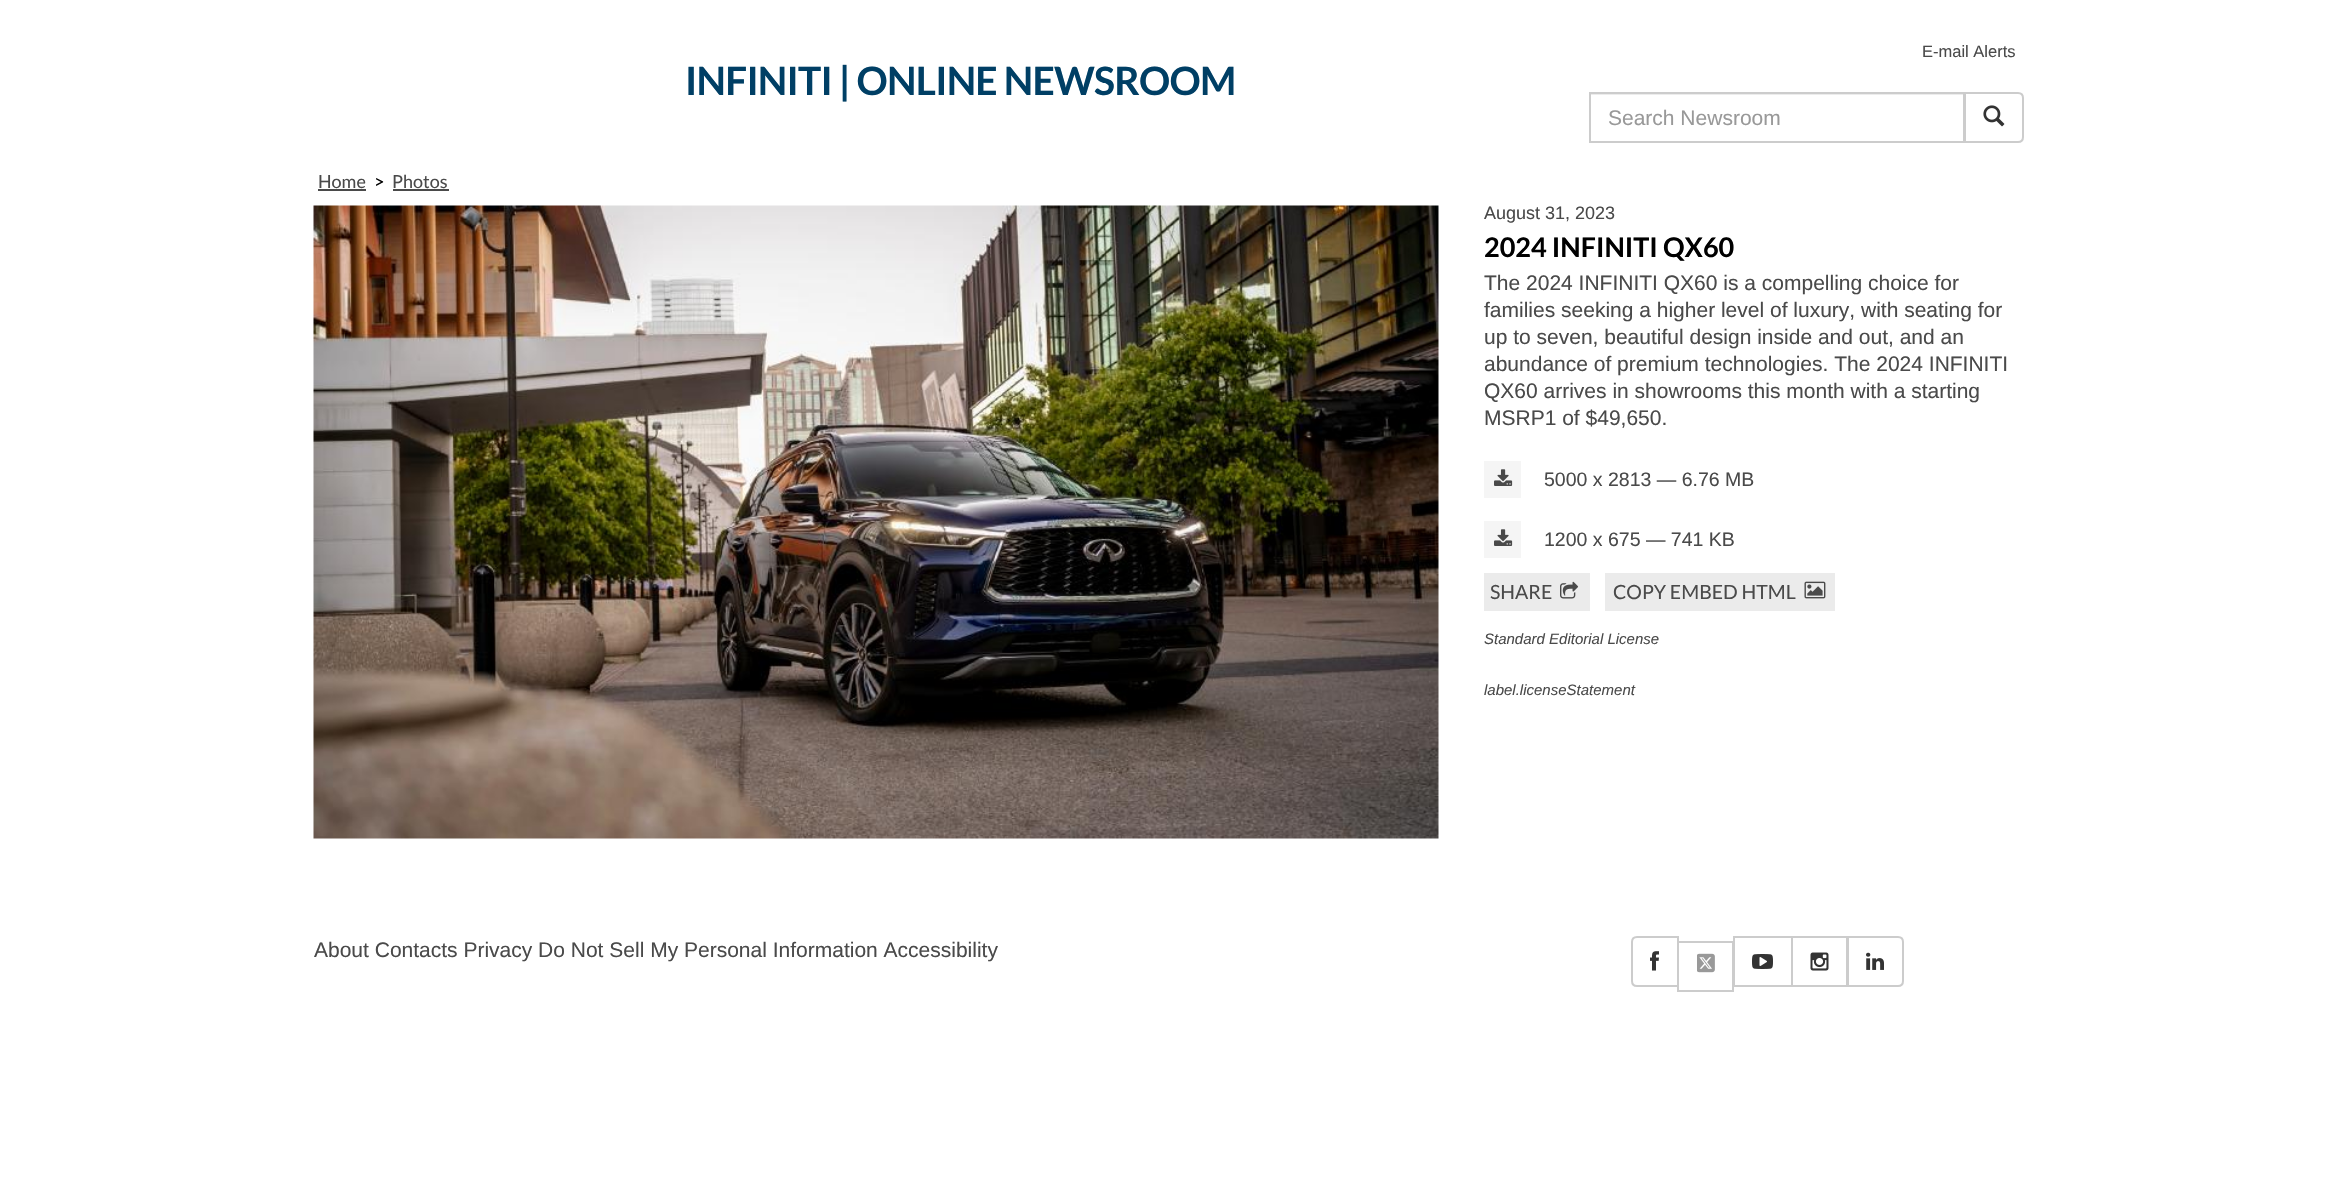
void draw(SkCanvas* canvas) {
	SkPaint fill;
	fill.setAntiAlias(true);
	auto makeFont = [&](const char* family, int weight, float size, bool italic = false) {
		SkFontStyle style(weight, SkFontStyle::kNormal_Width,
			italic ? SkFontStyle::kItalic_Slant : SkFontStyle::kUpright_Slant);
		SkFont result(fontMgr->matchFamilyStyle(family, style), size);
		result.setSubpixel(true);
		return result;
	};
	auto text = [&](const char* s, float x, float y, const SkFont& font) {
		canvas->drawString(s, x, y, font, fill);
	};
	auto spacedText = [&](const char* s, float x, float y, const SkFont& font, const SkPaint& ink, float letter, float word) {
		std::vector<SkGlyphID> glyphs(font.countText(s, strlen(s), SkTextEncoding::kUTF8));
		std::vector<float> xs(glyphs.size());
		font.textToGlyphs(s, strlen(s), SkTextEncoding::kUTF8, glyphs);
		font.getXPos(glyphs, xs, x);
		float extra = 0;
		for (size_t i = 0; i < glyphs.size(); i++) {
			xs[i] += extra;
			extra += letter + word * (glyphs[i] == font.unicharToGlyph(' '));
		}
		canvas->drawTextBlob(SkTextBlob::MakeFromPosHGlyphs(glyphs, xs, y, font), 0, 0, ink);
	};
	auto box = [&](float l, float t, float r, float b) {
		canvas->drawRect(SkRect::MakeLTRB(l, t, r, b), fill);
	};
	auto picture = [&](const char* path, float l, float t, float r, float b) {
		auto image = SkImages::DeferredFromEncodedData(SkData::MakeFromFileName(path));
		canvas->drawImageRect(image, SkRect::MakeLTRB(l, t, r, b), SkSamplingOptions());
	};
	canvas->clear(0xFFFFFFFF);
	fill.setColor(0xFFECECEC);
	box(1590, 94, 1964, 95);
	fill.setStyle(SkPaint::kStroke_Style);
	fill.setStrokeWidth(2);
	fill.setColor(0xFFCCCCCC);
	canvas->drawRect(SkRect::MakeLTRB(1590, 93, 1964, 142), fill);
	fill.setStyle(SkPaint::kFill_Style);
	fill.setColor(0xFFFFFFFF);
	canvas->drawPath(SkPathBuilder().moveTo(1965, 93).lineTo(2018, 93).cubicTo(2021, 93, 2023, 95, 2023, 98).lineTo(2023, 137).cubicTo(2023, 140, 2021, 142, 2018, 142).lineTo(1965, 142).close().detach(), fill);
	fill.setStyle(SkPaint::kStroke_Style);
	fill.setColor(0xFFCCCCCC);
	canvas->drawPath(SkPathBuilder().moveTo(1965, 93).lineTo(2018, 93).cubicTo(2021, 93, 2023, 95, 2023, 98).lineTo(2023, 137).cubicTo(2023, 140, 2021, 142, 2018, 142).lineTo(1965, 142).close().detach(), fill);
	picture("image0.png", 1983, 105, 2005, 127);
	fill.setStyle(SkPaint::kFill_Style);
	fill.setColor(0xFF4A4A4A);
	box(318, 189, 366, 191);
	box(393, 189, 449, 191);
	picture("image1.png", 313, 205, 1439, 839);
	fill.setColor(0xFFF5F5F5);
	box(1484, 461, 1521, 498);
	picture("image2.png", 1494, 469, 1513, 486);
	box(1484, 521, 1521, 558);
	picture("image2.png", 1494, 529, 1513, 546);
	fill.setColor(0xFFEBEBEB);
	box(1484, 573, 1590, 611);
	picture("image3.png", 1560, 581, 1579, 599);
	box(1605, 573, 1835, 611);
	picture("image4.png", 1804, 581, 1826, 599);
	fill.setStyle(SkPaint::kStroke_Style);
	fill.setColor(0xFFCCCCCC);
	canvas->drawRect(SkRect::MakeLTRB(1678, 942, 1733, 991), fill);
	fill.setStyle(SkPaint::kFill_Style);
	fill.setColor(0xFFFFFFFF);
	canvas->drawPath(SkPathBuilder().moveTo(1637, 937).lineTo(1678, 937).lineTo(1678, 986).lineTo(1637, 986).cubicTo(1634, 986, 1632, 984, 1632, 981).lineTo(1632, 942).cubicTo(1632, 939, 1634, 937, 1637, 937).close().detach(), fill);
	fill.setStyle(SkPaint::kStroke_Style);
	fill.setColor(0xFFCCCCCC);
	canvas->drawPath(SkPathBuilder().moveTo(1637, 937).lineTo(1678, 937).lineTo(1678, 986).lineTo(1637, 986).cubicTo(1634, 986, 1632, 984, 1632, 981).lineTo(1632, 942).cubicTo(1632, 939, 1634, 937, 1637, 937).close().detach(), fill);
	picture("image5.png", 1650, 951, 1659, 971);
	picture("image6.png", 1697, 953, 1715, 973);
	canvas->drawRect(SkRect::MakeLTRB(1734, 937, 1792, 986), fill);
	picture("image7.png", 1752, 954, 1773, 969);
	canvas->drawRect(SkRect::MakeLTRB(1792, 937, 1847, 986), fill);
	picture("image8.png", 1810, 952, 1829, 971);
	fill.setStyle(SkPaint::kFill_Style);
	fill.setColor(0xFFFFFFFF);
	canvas->drawPath(SkPathBuilder().moveTo(1848, 937).lineTo(1898, 937).cubicTo(1901, 937, 1903, 939, 1903, 942).lineTo(1903, 981).cubicTo(1903, 984, 1901, 986, 1898, 986).lineTo(1848, 986).close().detach(), fill);
	fill.setStyle(SkPaint::kStroke_Style);
	fill.setColor(0xFFCCCCCC);
	canvas->drawPath(SkPathBuilder().moveTo(1848, 937).lineTo(1898, 937).cubicTo(1901, 937, 1903, 939, 1903, 942).lineTo(1903, 981).cubicTo(1903, 984, 1901, 986, 1898, 986).lineTo(1848, 986).close().detach(), fill);
	picture("image9.png", 1866, 952, 1884, 970);
	auto font1 = makeFont("Lato", 700, 39);
	fill.setStyle(SkPaint::kFill_Style);
	fill.setColor(0xFF003F65);
	spacedText("INFINITI | ONLINE NEWSROOM", 685, 95, font1, fill, -0.75f, 0);
	auto font2 = makeFont("Liberation Sans", 400, 16.5f);
	fill.setColor(0xFF4A4A4A);
	text("E-mail Alerts", 1922, 57, font2);
	auto font3 = makeFont("Liberation Sans", 400, 21);
	fill.setColor(0xFF999999);
	text("Search Newsroom", 1608, 125, font3);
	auto font4 = makeFont("Lato", 400, 18);
	fill.setColor(0xFF4A4A4A);
	text("Home", 318, 188, font4);
	fill.setColor(0xFF000000);
	text(">", 374, 188, font4);
	fill.setColor(0xFF4A4A4A);
	text("Photos", 392, 188, font4);
	auto font5 = makeFont("Liberation Sans", 400, 18);
	text("August 31, 2023", 1484, 219, font5);
	auto font6 = makeFont("Lato", 700, 27);
	fill.setColor(0xFF000000);
	text("2024 INFINITI QX60", 1484, 257, font6);
	fill.setColor(0xFF4A4A4A);
	text("The 2024 INFINITI QX60 is a compelling choice for", 1484, 290, font3);
	text("families seeking a higher level of luxury, with seating for", 1484, 317, font3);
	text("up to seven, beautiful design inside and out, and an", 1484, 344, font3);
	text("abundance of premium technologies. The 2024 INFINITI", 1484, 371, font3);
	text("QX60 arrives in showrooms this month with a starting", 1484, 398, font3);
	text("MSRP1 of $49,650.", 1484, 425, font3);
	auto font7 = makeFont("Liberation Sans", 400, 19.5f);
	text("5000 x 2813 — 6.76 MB", 1544, 486, font7);
	text("1200 x 675 — 741 KB", 1544, 546, font7);
	auto font8 = makeFont("Lato", 400, 19.5f);
	text("SHARE", 1490, 599, font8);
	text("COPY EMBED HTML", 1613, 599, font8);
	auto font9 = makeFont("Liberation Sans", 400, 15, true);
	text("Standard Editorial License", 1484, 644, font9);
	text("label.licenseStatement", 1484, 695, font9);
	text("About Contacts Privacy Do Not Sell My Personal Information Accessibility", 314, 957, font3);
}
